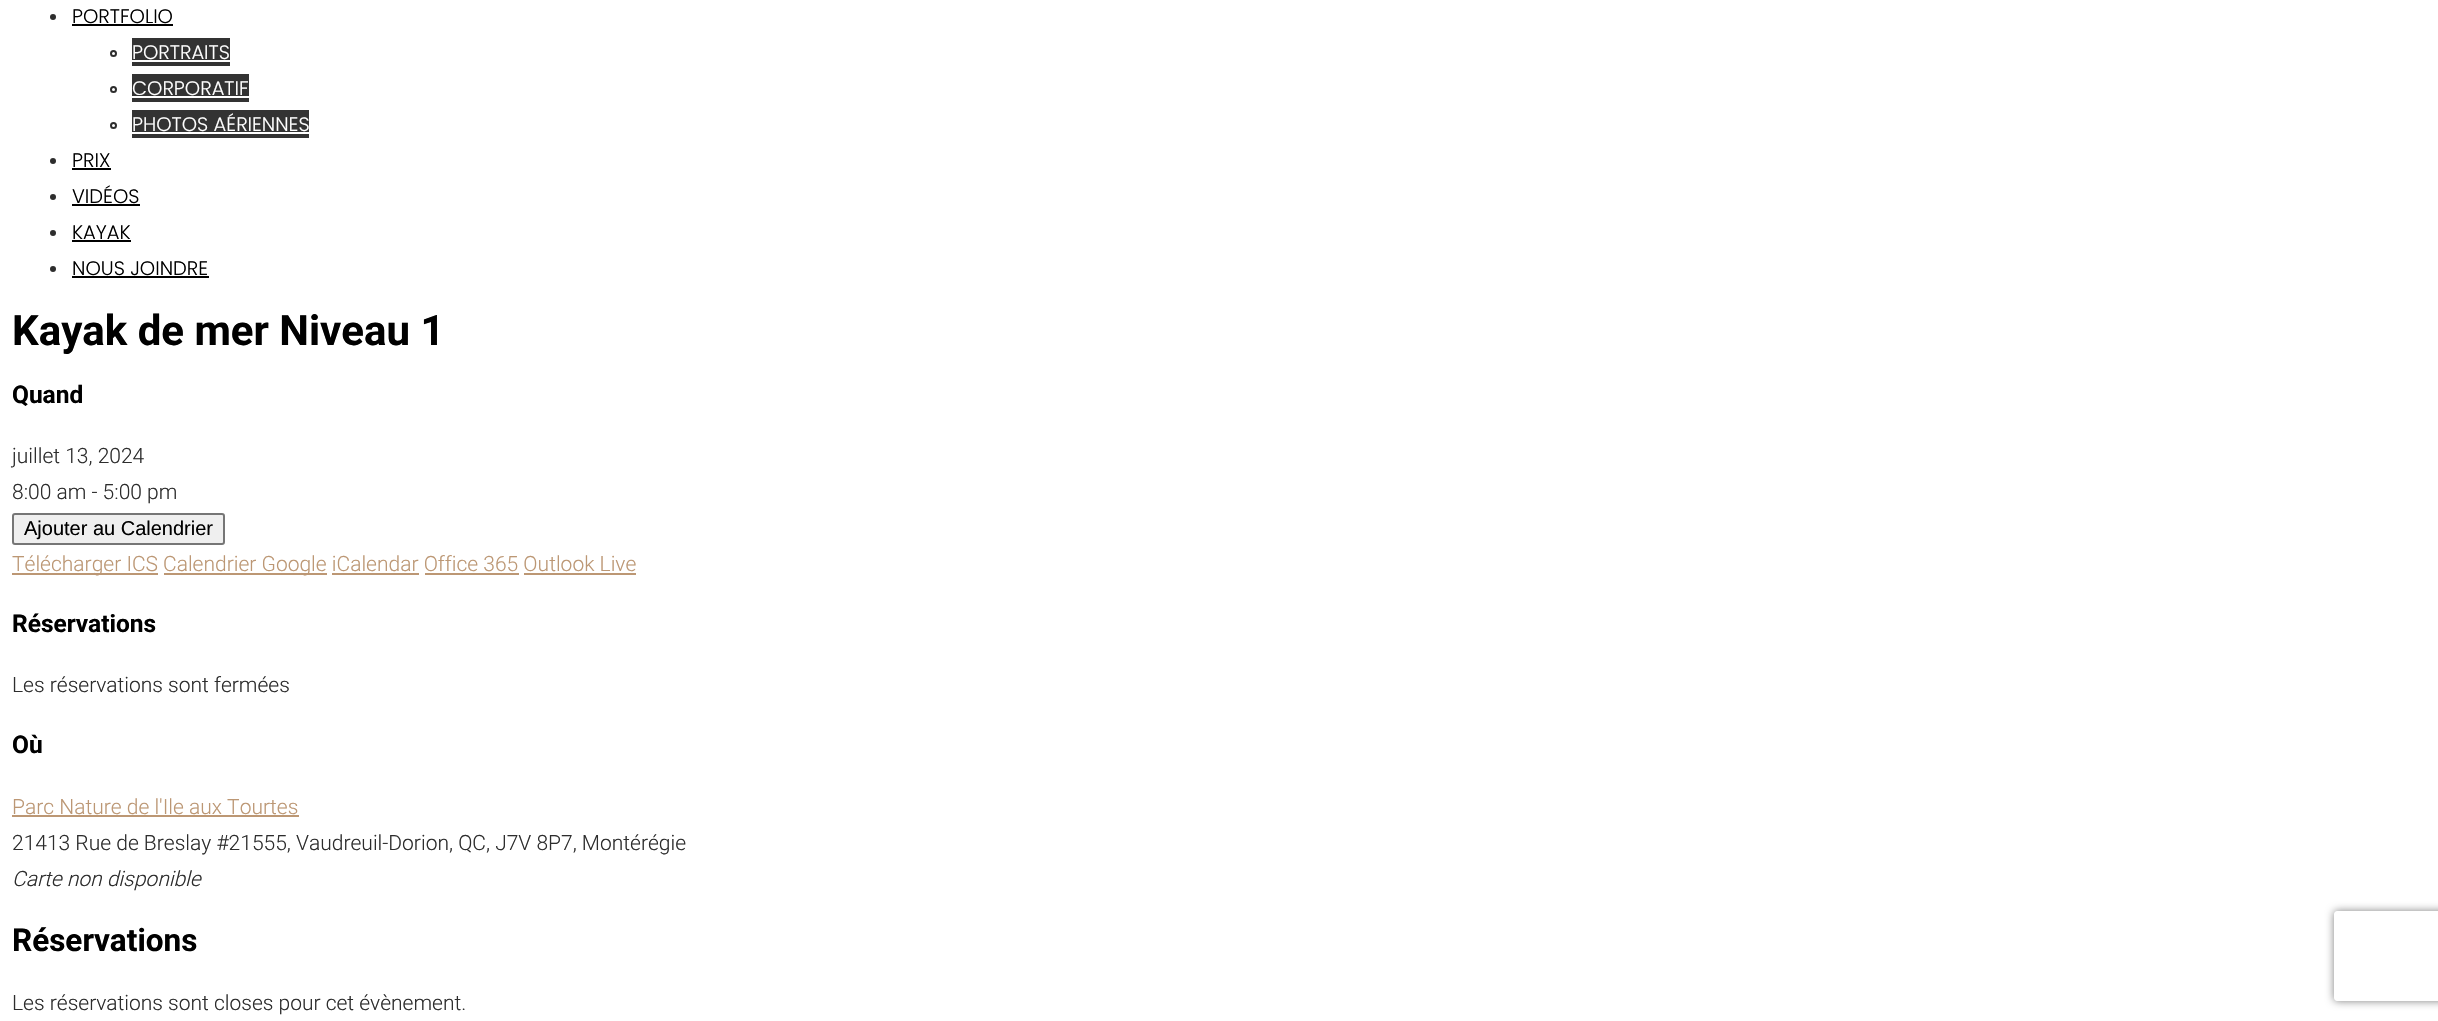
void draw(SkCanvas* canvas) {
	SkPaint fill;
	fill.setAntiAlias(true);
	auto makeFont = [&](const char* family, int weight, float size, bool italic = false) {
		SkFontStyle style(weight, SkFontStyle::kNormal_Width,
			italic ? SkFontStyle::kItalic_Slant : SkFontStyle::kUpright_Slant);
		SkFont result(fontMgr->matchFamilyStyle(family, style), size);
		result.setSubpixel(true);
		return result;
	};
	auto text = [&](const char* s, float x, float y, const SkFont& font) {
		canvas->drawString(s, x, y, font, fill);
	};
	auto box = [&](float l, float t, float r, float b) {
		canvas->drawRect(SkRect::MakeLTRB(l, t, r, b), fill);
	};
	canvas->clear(0xFFFFFFFF);
	fill.setColor(0xFF2D2D2D);
	canvas->drawCircle(53, 17, 3, fill);
	fill.setColor(0xFF000000);
	box(72, 24, 173, 26);
	fill.setStyle(SkPaint::kStroke_Style);
	fill.setStrokeWidth(2);
	fill.setColor(0xFF2D2D2D);
	canvas->drawCircle(113.5f, 53.5f, 2.5f, fill);
	fill.setStyle(SkPaint::kFill_Style);
	fill.setColor(0xFF333333);
	box(132, 38, 230, 66);
	fill.setColor(0xFFFFFFFF);
	box(132, 60, 230, 62);
	fill.setStyle(SkPaint::kStroke_Style);
	fill.setColor(0xFF2D2D2D);
	canvas->drawCircle(113.5f, 89.5f, 2.5f, fill);
	fill.setStyle(SkPaint::kFill_Style);
	fill.setColor(0xFF333333);
	box(132, 74, 249, 102);
	fill.setColor(0xFFFFFFFF);
	box(132, 96, 249, 98);
	fill.setStyle(SkPaint::kStroke_Style);
	fill.setColor(0xFF2D2D2D);
	canvas->drawCircle(113.5f, 125.5f, 2.5f, fill);
	fill.setStyle(SkPaint::kFill_Style);
	fill.setColor(0xFF333333);
	box(132, 110, 309, 138);
	fill.setColor(0xFFFFFFFF);
	box(132, 132, 309, 134);
	fill.setColor(0xFF2D2D2D);
	canvas->drawCircle(53, 161, 3, fill);
	fill.setColor(0xFF000000);
	box(72, 168, 111, 170);
	fill.setColor(0xFF2D2D2D);
	canvas->drawCircle(53, 197, 3, fill);
	fill.setColor(0xFF000000);
	box(72, 204, 140, 206);
	fill.setColor(0xFF2D2D2D);
	canvas->drawCircle(53, 233, 3, fill);
	fill.setColor(0xFF000000);
	box(72, 240, 131, 242);
	fill.setColor(0xFF2D2D2D);
	canvas->drawCircle(53, 269, 3, fill);
	fill.setColor(0xFF000000);
	box(72, 276, 209, 278);
	fill.setColor(0xFFEFEFEF);
	canvas->drawRoundRect(SkRect::MakeLTRB(13, 514, 224, 544), 2, 2, fill);
	fill.setStyle(SkPaint::kStroke_Style);
	fill.setColor(0xFF767676);
	canvas->drawRoundRect(SkRect::MakeLTRB(13, 514, 224, 544), 2, 2, fill);
	fill.setStyle(SkPaint::kFill_Style);
	fill.setColor(0xFFBC9774);
	box(12, 573, 158, 575);
	box(164, 573, 327, 575);
	box(332, 573, 419, 575);
	box(425, 573, 519, 575);
	box(524, 573, 636, 575);
	box(12, 815, 299, 817);
	canvas->save();
	canvas->clipPath(SkPathBuilder(SkPathFillType::kEvenOdd).moveTo(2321, 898).lineTo(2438, 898).lineTo(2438, 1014).lineTo(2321, 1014).close().moveTo(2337, 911).lineTo(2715, 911).cubicTo(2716.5f, 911, 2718, 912.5f, 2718, 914).lineTo(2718, 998).cubicTo(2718, 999.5f, 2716.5f, 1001, 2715, 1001).lineTo(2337, 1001).cubicTo(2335.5f, 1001, 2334, 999.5f, 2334, 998).lineTo(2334, 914).cubicTo(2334, 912.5f, 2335.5f, 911, 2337, 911).close().detach(), true);
	fill.setColor(0xFF808080);
	fill.setMaskFilter(SkMaskFilter::MakeBlur(kNormal_SkBlurStyle, 4));
	canvas->drawRoundRect(SkRect::MakeLTRB(2334, 911, 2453, 1001), 3, 3, fill);
	fill.setMaskFilter(nullptr);
	canvas->restore();
	auto font1 = makeFont("Poppins", 300, 19.5f);
	fill.setColor(0xFF000000);
	text("PORTFOLIO", 72, 23, font1);
	fill.setColor(0xFFFFFFFF);
	text("PORTRAITS", 132, 59, font1);
	text("CORPORATIF", 132, 95, font1);
	text("PHOTOS AÉRIENNES", 132, 131, font1);
	fill.setColor(0xFF000000);
	text("PRIX", 72, 167, font1);
	text("VIDÉOS", 72, 203, font1);
	text("KAYAK", 72, 239, font1);
	text("NOUS JOINDRE", 72, 275, font1);
	auto font2 = makeFont("Roboto", 700, 42);
	text("Kayak de mer Niveau 1", 12, 345, font2);
	auto font3 = makeFont("Roboto", 700, 24.5f);
	text("Quand", 12, 403, font3);
	auto font4 = makeFont("Roboto", 300, 21);
	fill.setColor(0xFF2D2D2D);
	text("juillet 13, 2024", 12, 463, font4);
	text("8:00 am - 5:00 pm", 12, 499, font4);
	auto font5 = makeFont("Liberation Sans", 400, 20);
	fill.setColor(0xFF000000);
	text("Ajouter au Calendrier", 24, 535, font5);
	fill.setColor(0xFFBC9774);
	text("Télécharger ICS", 12, 571, font4);
	text("Calendrier Google iCalendar Office 365 Outlook Live", 163, 571, font4);
	fill.setColor(0xFF000000);
	text("Réservations", 12, 632, font3);
	fill.setColor(0xFF2D2D2D);
	text("Les réservations sont fermées", 12, 692, font4);
	fill.setColor(0xFF000000);
	text("Où", 12, 753, font3);
	fill.setColor(0xFFBC9774);
	text("Parc Nature de l'Ile aux Tourtes", 12, 814, font4);
	fill.setColor(0xFF2D2D2D);
	text("21413 Rue de Breslay #21555, Vaudreuil-Dorion, QC, J7V 8P7, Montérégie", 12, 850, font4);
	auto font6 = makeFont("Roboto", 300, 21, true);
	text("Carte non disponible", 12, 886, font6);
	auto font7 = makeFont("Roboto", 700, 31.5f);
	fill.setColor(0xFF000000);
	text("Réservations", 12, 951, font7);
	fill.setColor(0xFF2D2D2D);
	text("Les réservations sont closes pour cet évènement.", 12, 1010, font4);
}
